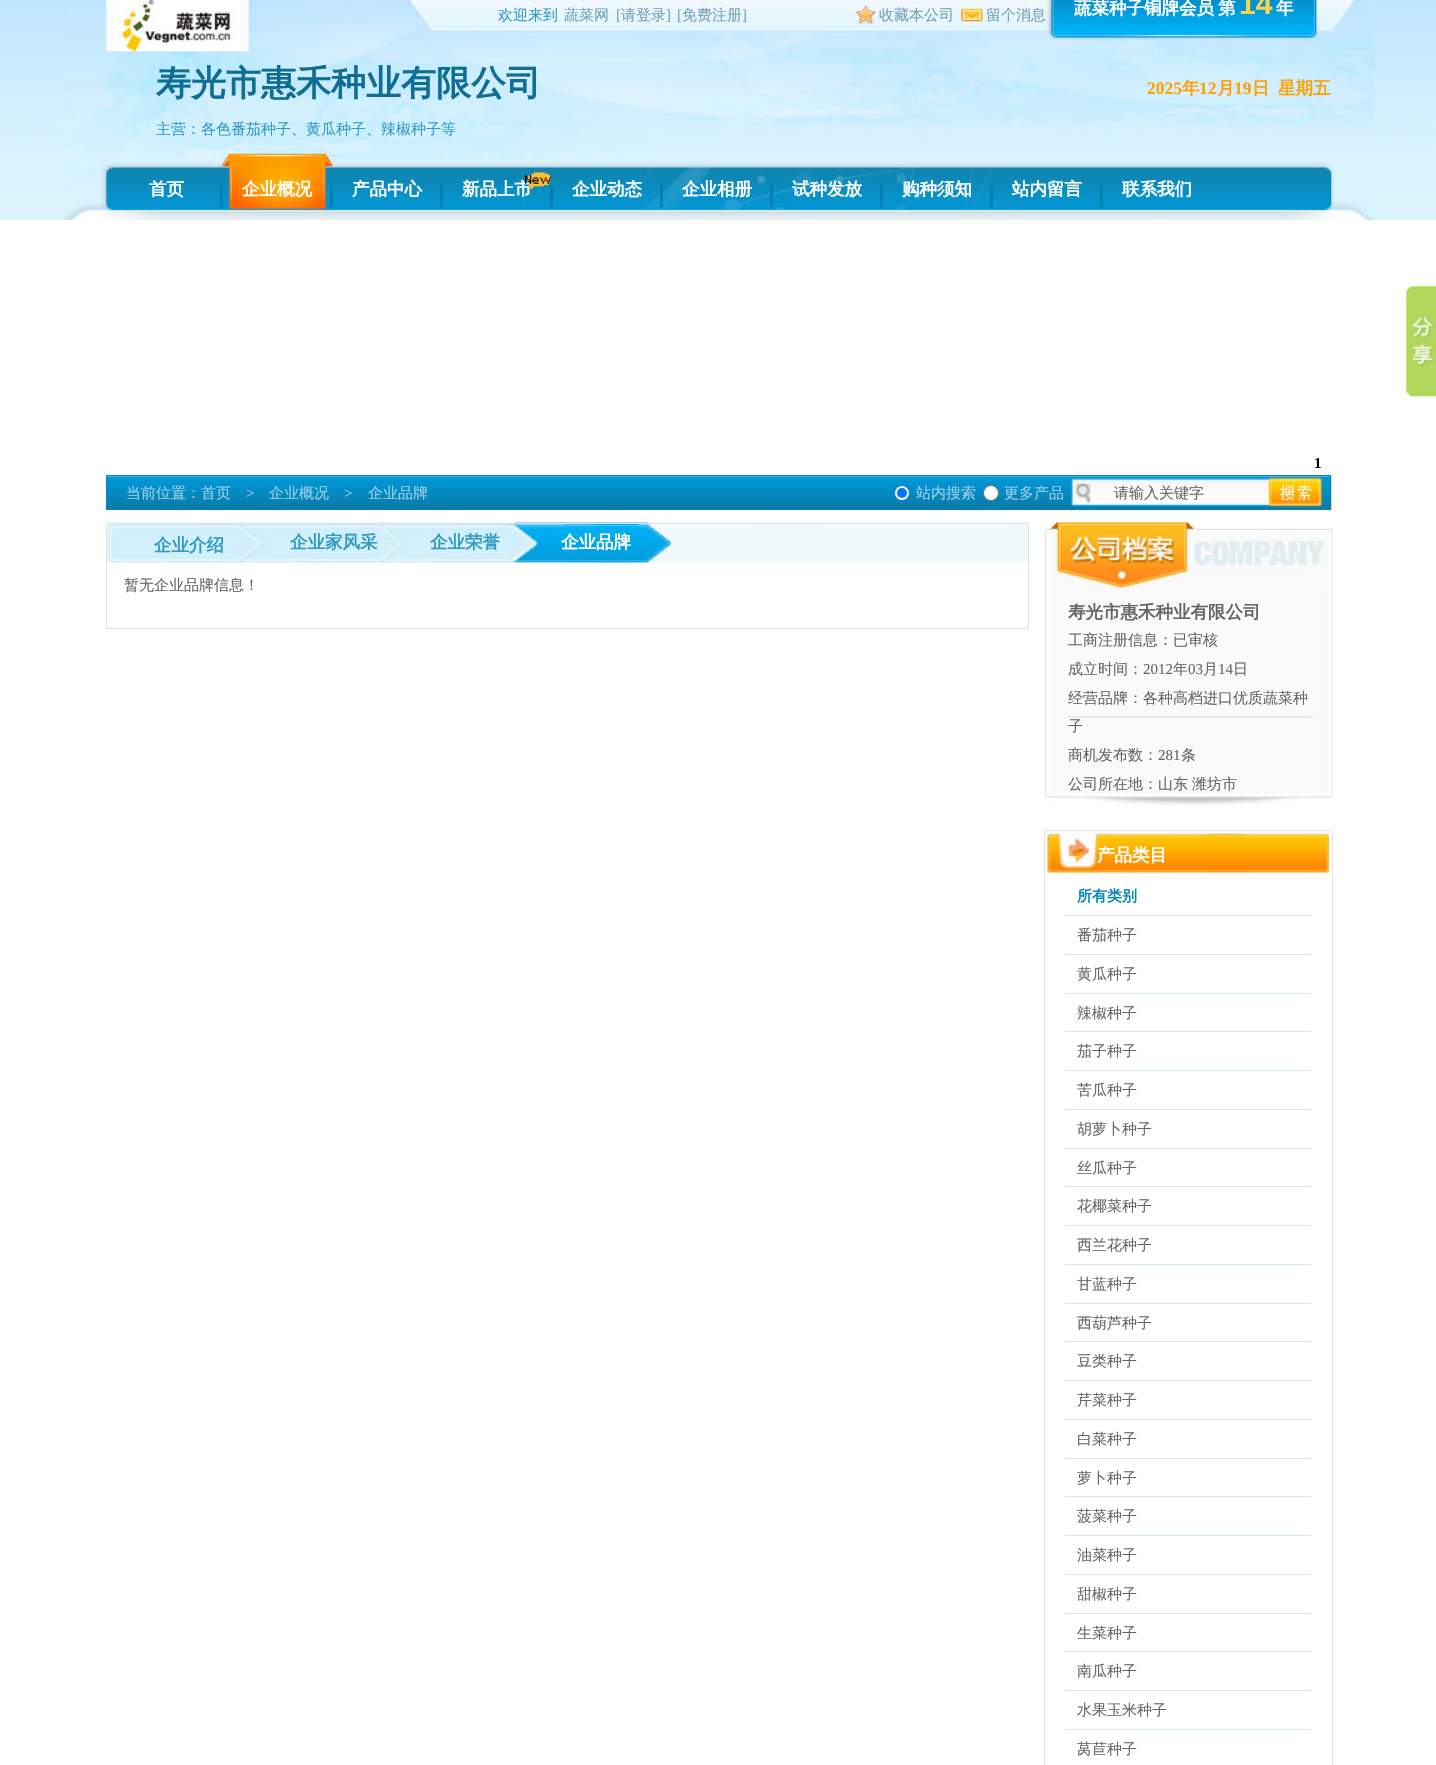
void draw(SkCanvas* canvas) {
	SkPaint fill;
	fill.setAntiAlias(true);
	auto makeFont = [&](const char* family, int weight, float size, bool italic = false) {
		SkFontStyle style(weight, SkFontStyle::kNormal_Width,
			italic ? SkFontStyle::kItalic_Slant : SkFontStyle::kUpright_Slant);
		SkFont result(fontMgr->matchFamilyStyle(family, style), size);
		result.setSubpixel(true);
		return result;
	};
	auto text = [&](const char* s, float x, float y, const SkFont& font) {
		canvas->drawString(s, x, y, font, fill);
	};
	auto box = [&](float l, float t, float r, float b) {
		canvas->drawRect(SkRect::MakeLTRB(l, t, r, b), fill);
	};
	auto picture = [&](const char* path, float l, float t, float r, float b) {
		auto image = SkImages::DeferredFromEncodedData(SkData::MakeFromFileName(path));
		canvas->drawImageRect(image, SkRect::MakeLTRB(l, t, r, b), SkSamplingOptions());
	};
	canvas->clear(0xFFFFFFFF);
	picture("image0.png", 0, 0, 1436, 220);
	picture("image1.png", 63, 0, 1375, 220);
	picture("image2.png", 106, 0, 249, 52);
	picture("image3.png", 855, 5, 877, 24);
	picture("image4.png", 961, 8, 983, 22);
	fill.setColor(0xFF017DB2);
	box(220, 185, 223, 207);
	box(330, 185, 333, 207);
	picture("image6.png", 222, 153, 333, 209);
	box(440, 185, 443, 207);
	box(550, 185, 553, 207);
	box(660, 185, 663, 207);
	box(770, 185, 773, 207);
	box(880, 185, 883, 207);
	box(990, 185, 993, 207);
	box(1100, 185, 1103, 207);
	picture("image7.png", 107, 476, 1332, 510);
	fill.setStyle(SkPaint::kStroke_Style);
	fill.setStrokeWidth(1);
	fill.setColor(0xFF0286BA);
	canvas->drawRect(SkRect::MakeLTRB(106.5f, 475.5f, 1330.5f, 509.5f), fill);
	fill.setStyle(SkPaint::kFill_Style);
	fill.setColor(0xFFFFFFFF);
	canvas->drawCircle(902, 493, 7.5f, fill);
	fill.setStyle(SkPaint::kStroke_Style);
	fill.setColor(0xFF0075FF);
	canvas->drawCircle(902, 493, 7.5f, fill);
	fill.setStyle(SkPaint::kFill_Style);
	canvas->drawCircle(902, 493, 5, fill);
	fill.setColor(0xFFFFFFFF);
	canvas->drawCircle(991, 493, 7.5f, fill);
	fill.setStyle(SkPaint::kStroke_Style);
	fill.setColor(0xFF767676);
	canvas->drawCircle(991, 493, 7.5f, fill);
	picture("image8.png", 1071, 478, 1270, 507);
	picture("image9.png", 1268, 477, 1323, 507);
	picture("image10.png", 106, 522, 1029, 563);
	fill.setStyle(SkPaint::kFill_Style);
	fill.setColor(0xFFE2E3E4);
	box(106, 523, 1029, 524);
	box(1028, 523, 1029, 563);
	box(106, 523, 107, 563);
	box(1028, 563, 1029, 629);
	box(106, 628, 1029, 629);
	box(106, 563, 107, 629);
	picture("image11.png", 1044, 522, 1333, 806);
	fill.setStyle(SkPaint::kStroke_Style);
	canvas->drawRect(SkRect::MakeLTRB(1044.5f, 830.5f, 1332.5f, 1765.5f), fill);
	picture("image12.png", 1047, 833, 1329, 873);
	fill.setStyle(SkPaint::kFill_Style);
	fill.setColor(0xFFD4E7EE);
	box(1065, 915, 1311, 916);
	box(1065, 954, 1311, 955);
	box(1065, 993, 1311, 994);
	box(1065, 1031, 1311, 1032);
	box(1065, 1070, 1311, 1071);
	box(1065, 1109, 1311, 1110);
	box(1065, 1148, 1311, 1149);
	box(1065, 1186, 1311, 1187);
	box(1065, 1225, 1311, 1226);
	box(1065, 1264, 1311, 1265);
	box(1065, 1303, 1311, 1304);
	box(1065, 1341, 1311, 1342);
	box(1065, 1380, 1311, 1381);
	box(1065, 1419, 1311, 1420);
	box(1065, 1458, 1311, 1459);
	box(1065, 1496, 1311, 1497);
	box(1065, 1535, 1311, 1536);
	box(1065, 1574, 1311, 1575);
	box(1065, 1613, 1311, 1614);
	box(1065, 1651, 1311, 1652);
	box(1065, 1690, 1311, 1691);
	box(1065, 1729, 1311, 1730);
	picture("image13.png", 1406, 286, 1436, 397);
	auto font1 = makeFont("WenQuanYi Zen Hei", 500, 15);
	fill.setColor(0xFF319BC5);
	text("欢迎来到", 498, 20, font1);
	fill.setColor(0xFF76A2B5);
	text("蔬菜网", 564, 20, font1);
	auto font2 = makeFont("Liberation Serif", 400, 15);
	text("[", 616, 20, font2);
	text("请登录", 621, 20, font1);
	text("]", 666, 20, font2);
	text("[", 677, 20, font2);
	text("免费注册", 682, 20, font1);
	text("]", 742, 20, font2);
	text("收藏本公司", 879, 20, font1);
	text("留个消息", 986, 20, font1);
	auto font3 = makeFont("WenQuanYi Zen Hei", 700, 17.5f);
	fill.setColor(0xFFFFFFFF);
	text("蔬菜种子铜牌会员", 1074, 14, font3);
	text("第", 1218, 14, font3);
	auto font4 = makeFont("Liberation Sans", 700, 30);
	fill.setColor(0xFFFBD44B);
	text("14", 1239, 14, font4);
	fill.setColor(0xFFFFFFFF);
	text("年", 1276, 14, font3);
	auto font5 = makeFont("WenQuanYi Zen Hei", 700, 35);
	fill.setColor(0xFF106E95);
	text("寿光市惠禾种业有限公司", 156, 95, font5);
	auto font6 = makeFont("Liberation Serif", 700, 17.5f);
	fill.setColor(0xFFFFA103);
	text("2025", 1147, 94, font6);
	text("年", 1182, 94, font3);
	text("12", 1199, 94, font6);
	text("月", 1217, 94, font3);
	text("19", 1234, 94, font6);
	text("日", 1252, 94, font3);
	text("星期五", 1278, 94, font3);
	fill.setColor(0xFF319BC5);
	text("主营：各色番茄种子、黄瓜种子、辣椒种子等", 156, 134, font1);
	fill.setColor(0xFFFFFFFF);
	text("首页", 149, 195, font3);
	text("企业概况", 242, 195, font3);
	text("产品中心", 352, 195, font3);
	text("新品上市", 462, 195, font3);
	picture("image5.png", 525, 172, 552, 189);
	text("企业动态", 572, 195, font3);
	text("企业相册", 682, 195, font3);
	text("试种发放", 792, 195, font3);
	text("购种须知", 902, 195, font3);
	text("站内留言", 1012, 195, font3);
	text("联系我们", 1122, 195, font3);
	auto font7 = makeFont("Liberation Serif", 700, 15);
	fill.setColor(0xFF000000);
	text("1", 1314, 468, font7);
	fill.setColor(0xFF9BCEEB);
	text("当前位置：首页", 126, 498, font1);
	text(">", 246, 498, font2);
	text("企业概况", 269, 498, font1);
	text(">", 344, 498, font2);
	text("企业品牌", 368, 498, font1);
	text("站内搜索", 916, 498, font1);
	text("更多产品", 1004, 498, font1);
	fill.setColor(0xFF666666);
	text("请输入关键字", 1114, 498, font1);
	fill.setColor(0xFF319BC5);
	text("企业介绍", 154, 551, font3);
	text("企业家风采", 290, 548, font3);
	text("企业荣誉", 430, 548, font3);
	fill.setColor(0xFFFFFFFF);
	text("企业品牌", 561, 548, font3);
	fill.setColor(0xFF666666);
	text("暂无企业品牌信息！", 124, 590, font1);
	text("寿光市惠禾种业有限公司", 1068, 618, font3);
	text("工商注册信息：已审核", 1068, 645, font1);
	text("成立时间：", 1068, 674, font1);
	text("2012", 1143, 674, font2);
	text("年", 1173, 674, font1);
	text("03", 1188, 674, font2);
	text("月", 1203, 674, font1);
	text("14", 1218, 674, font2);
	text("日", 1233, 674, font1);
	text("经营品牌：各种高档进口优质蔬菜种", 1068, 703, font1);
	text("子", 1068, 731, font1);
	text("商机发布数：", 1068, 760, font1);
	text("281", 1158, 760, font2);
	text("条", 1181, 760, font1);
	text("公司所在地：山东", 1068, 789, font1);
	text("潍坊市", 1192, 789, font1);
	fill.setColor(0xFFFFFFFF);
	text("产品类目", 1097, 861, font3);
	auto font8 = makeFont("WenQuanYi Zen Hei", 700, 15);
	fill.setColor(0xFF0485BB);
	text("所有类别", 1077, 901, font8);
	fill.setColor(0xFF666666);
	text("番茄种子", 1077, 940, font1);
	text("黄瓜种子", 1077, 979, font1);
	text("辣椒种子", 1077, 1018, font1);
	text("茄子种子", 1077, 1056, font1);
	text("苦瓜种子", 1077, 1095, font1);
	text("胡萝卜种子", 1077, 1134, font1);
	text("丝瓜种子", 1077, 1173, font1);
	text("花椰菜种子", 1077, 1211, font1);
	text("西兰花种子", 1077, 1250, font1);
	text("甘蓝种子", 1077, 1289, font1);
	text("西葫芦种子", 1077, 1328, font1);
	text("豆类种子", 1077, 1366, font1);
	text("芹菜种子", 1077, 1405, font1);
	text("白菜种子", 1077, 1444, font1);
	text("萝卜种子", 1077, 1483, font1);
	text("菠菜种子", 1077, 1521, font1);
	text("油菜种子", 1077, 1560, font1);
	text("甜椒种子", 1077, 1599, font1);
	text("生菜种子", 1077, 1638, font1);
	text("南瓜种子", 1077, 1676, font1);
	text("水果玉米种子", 1077, 1715, font1);
	text("莴苣种子", 1077, 1754, font1);
}
